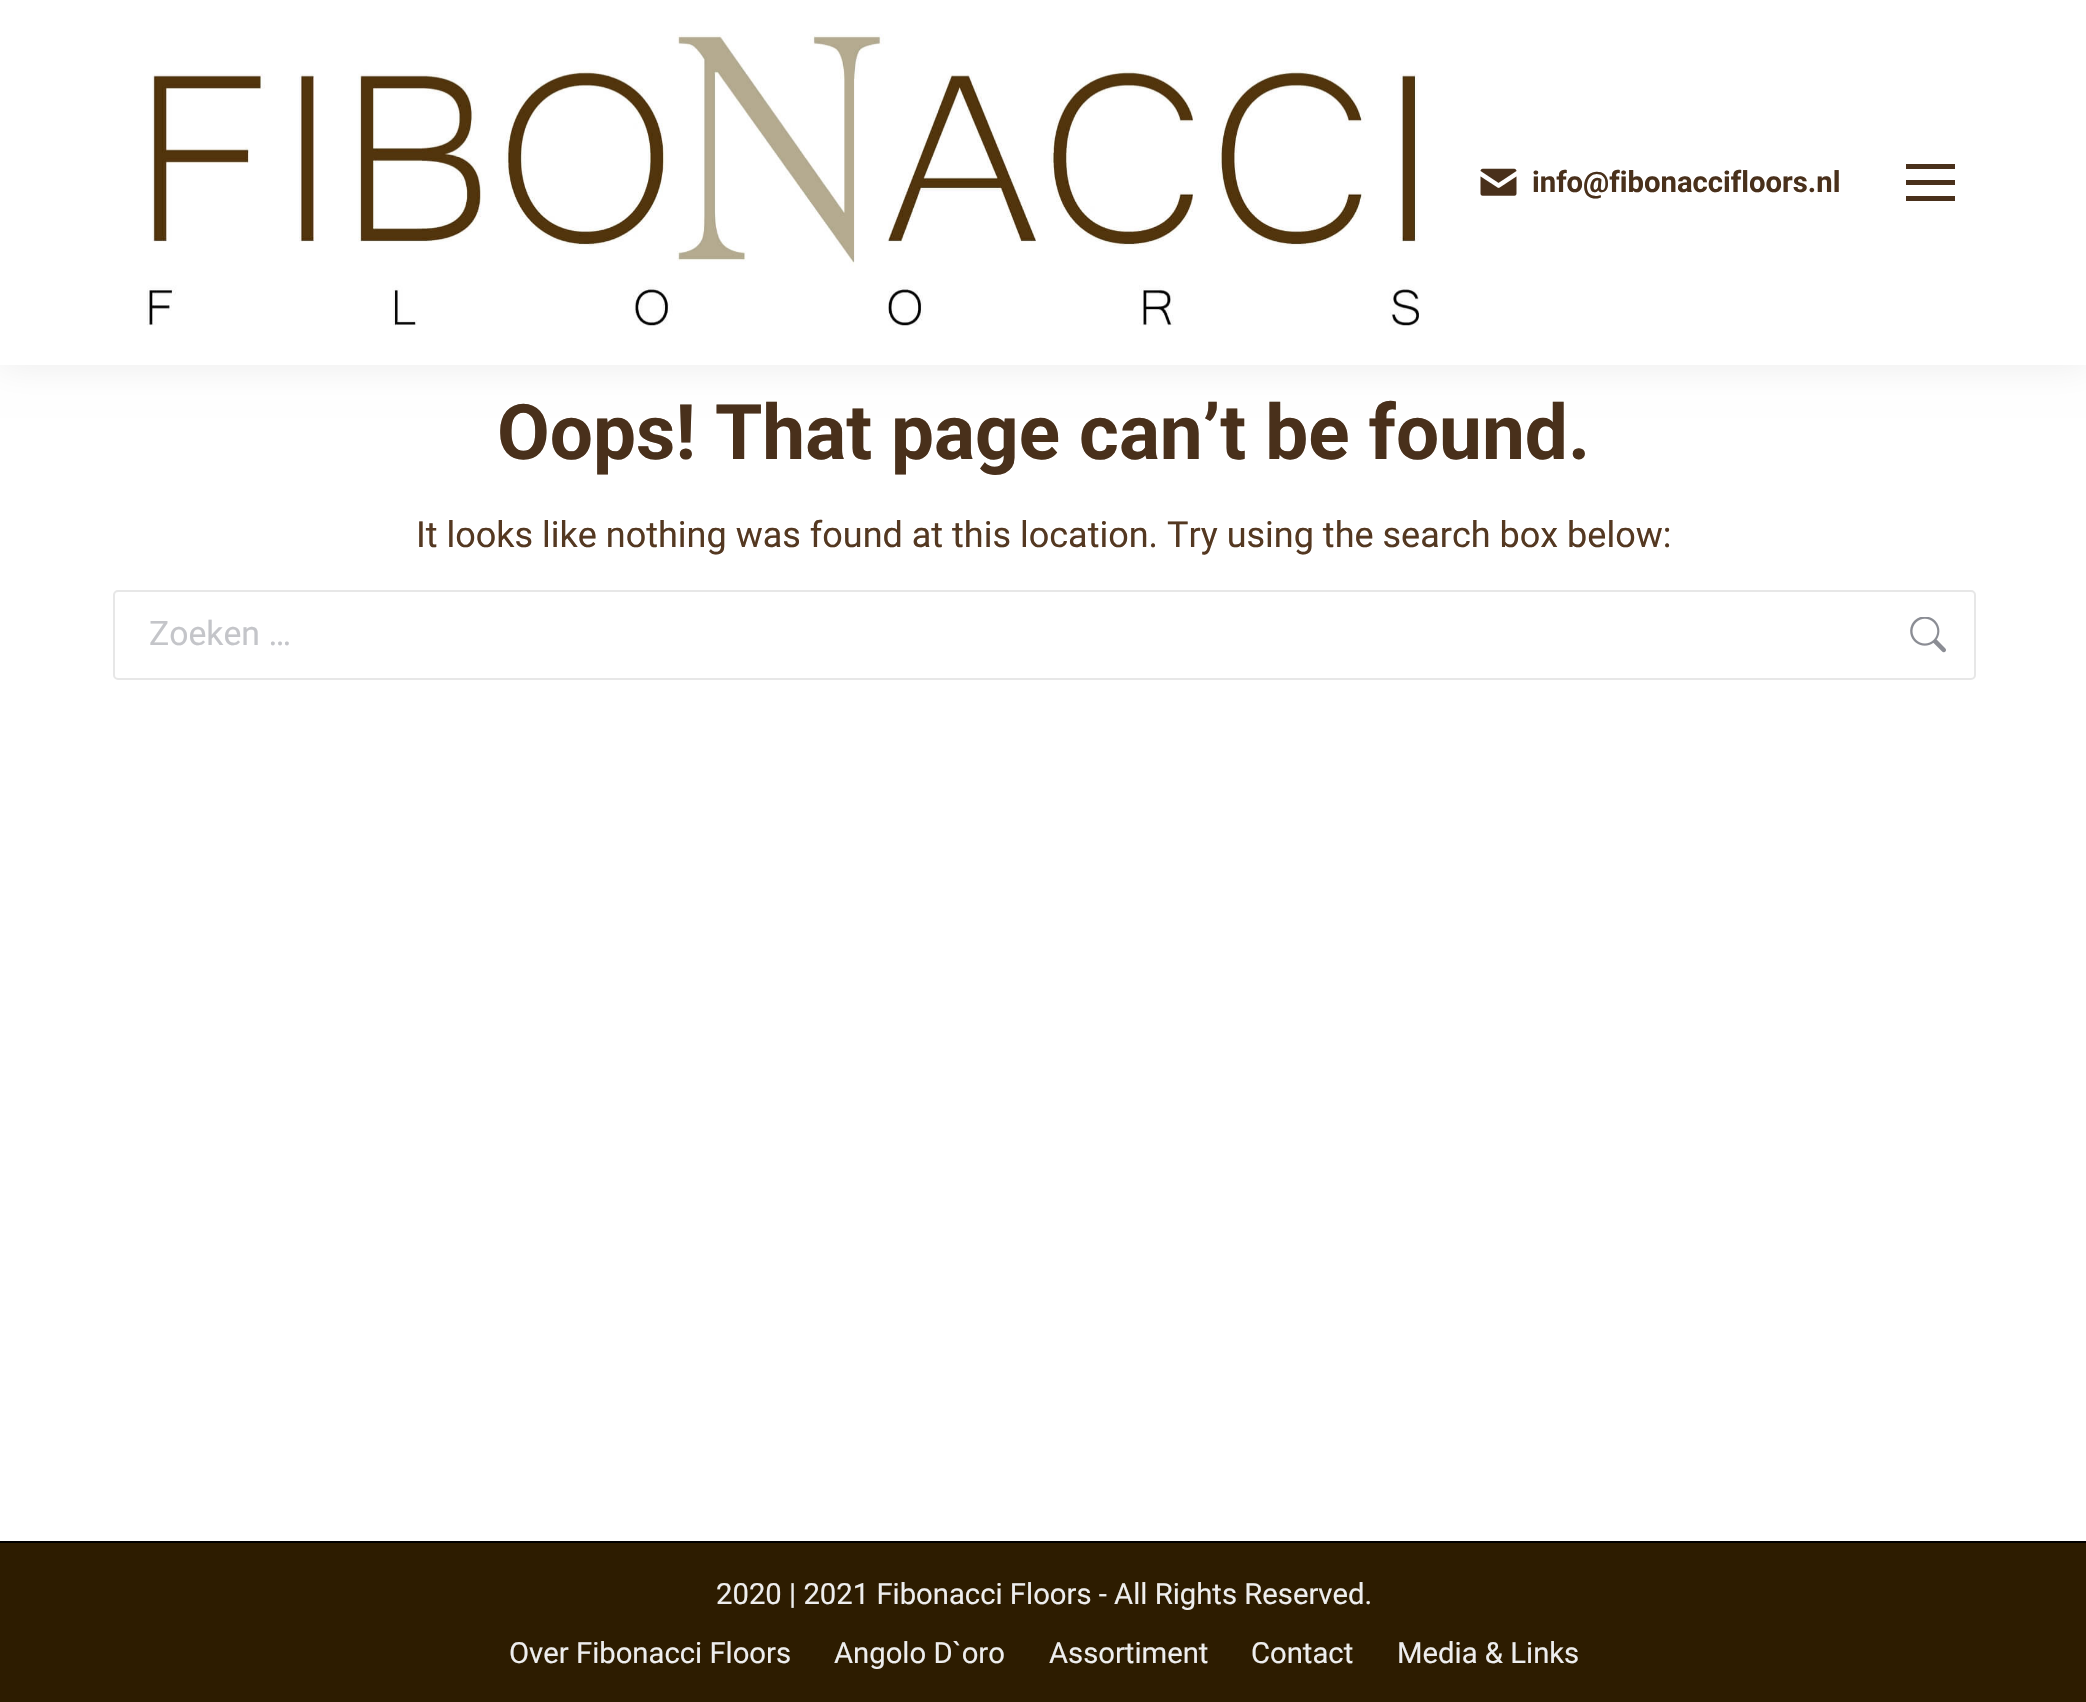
void draw(SkCanvas* canvas) {
	SkPaint fill;
	fill.setAntiAlias(true);
	auto makeFont = [&](const char* family, int weight, float size, bool italic = false) {
		SkFontStyle style(weight, SkFontStyle::kNormal_Width,
			italic ? SkFontStyle::kItalic_Slant : SkFontStyle::kUpright_Slant);
		SkFont result(fontMgr->matchFamilyStyle(family, style), size);
		result.setSubpixel(true);
		return result;
	};
	auto text = [&](const char* s, float x, float y, const SkFont& font) {
		canvas->drawString(s, x, y, font, fill);
	};
	auto box = [&](float l, float t, float r, float b) {
		canvas->drawRect(SkRect::MakeLTRB(l, t, r, b), fill);
	};
	auto picture = [&](const char* path, float l, float t, float r, float b) {
		auto image = SkImages::DeferredFromEncodedData(SkData::MakeFromFileName(path));
		canvas->drawImageRect(image, SkRect::MakeLTRB(l, t, r, b), SkSamplingOptions());
	};
	canvas->clear(0xFFFFFFFF);
	fill.setColor(0x12000000);
	fill.setMaskFilter(SkMaskFilter::MakeBlur(kNormal_SkBlurStyle, 17));
	canvas->drawRect(SkRect::MakeLTRB(-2, -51, 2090, 367), fill);
	fill.setMaskFilter(nullptr);
	fill.setColor(0xFFFFFFFF);
	box(0, 0, 2086, 365);
	picture("image0.png", 147, 34, 1419, 326);
	picture("image1.png", 1480, 168, 1517, 196);
	fill.setColor(0xFF49301B);
	box(1906, 164, 1955, 169);
	box(1906, 180, 1955, 185);
	box(1906, 196, 1955, 201);
	fill.setStyle(SkPaint::kStroke_Style);
	fill.setStrokeWidth(2);
	fill.setColor(0xFFE7E7E7);
	canvas->drawRoundRect(SkRect::MakeLTRB(114, 591, 1975, 679), 4, 4, fill);
	picture("image2.png", 1910, 617, 1946, 653);
	fill.setStyle(SkPaint::kFill_Style);
	fill.setColor(0xFF2D1C00);
	box(0, 1543, 2086, 1702);
	fill.setColor(0xFF000000);
	box(0, 1541, 2086, 1543);
	auto font1 = makeFont("Roboto", 700, 29.25f);
	fill.setColor(0xFF49301B);
	text("info@fibonaccifloors.nl", 1532, 192, font1);
	auto font2 = makeFont("Roboto", 700, 76.5f);
	text("Oops! That page can’t be found.", 497, 459, font2);
	auto font3 = makeFont("Roboto", 400, 36);
	fill.setColor(0xFF543821);
	text("It looks like nothing was found at this location. Try using the search box below:", 416, 547, font3);
	auto font4 = makeFont("Roboto", 400, 33.75f);
	fill.setColor(0xFFC4C5C9);
	text("Zoeken …", 149, 645, font4);
	auto font5 = makeFont("Roboto", 400, 29.25f);
	fill.setColor(0xFFEEEEEE);
	text("2020 | 2021 Fibonacci Floors - All Rights Reserved.", 716, 1604, font5);
	text("Over Fibonacci Floors", 509, 1663, font5);
	text("Angolo D`oro", 834, 1663, font5);
	text("Assortiment", 1049, 1663, font5);
	text("Contact", 1251, 1663, font5);
	text("Media & Links", 1397, 1663, font5);
}
